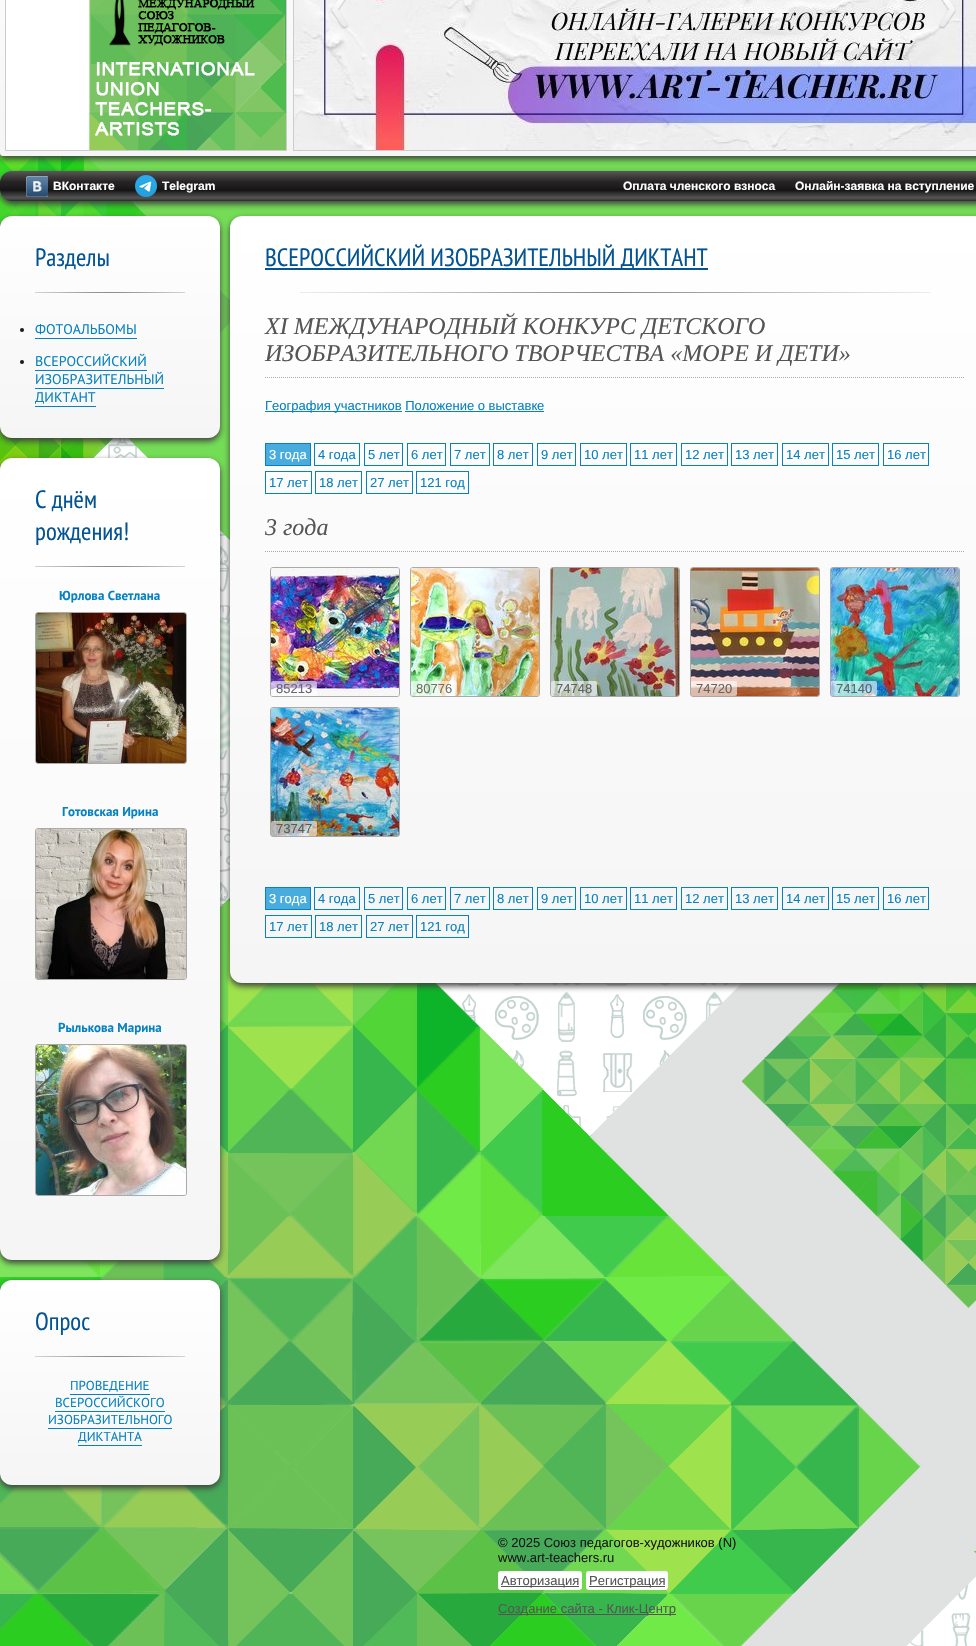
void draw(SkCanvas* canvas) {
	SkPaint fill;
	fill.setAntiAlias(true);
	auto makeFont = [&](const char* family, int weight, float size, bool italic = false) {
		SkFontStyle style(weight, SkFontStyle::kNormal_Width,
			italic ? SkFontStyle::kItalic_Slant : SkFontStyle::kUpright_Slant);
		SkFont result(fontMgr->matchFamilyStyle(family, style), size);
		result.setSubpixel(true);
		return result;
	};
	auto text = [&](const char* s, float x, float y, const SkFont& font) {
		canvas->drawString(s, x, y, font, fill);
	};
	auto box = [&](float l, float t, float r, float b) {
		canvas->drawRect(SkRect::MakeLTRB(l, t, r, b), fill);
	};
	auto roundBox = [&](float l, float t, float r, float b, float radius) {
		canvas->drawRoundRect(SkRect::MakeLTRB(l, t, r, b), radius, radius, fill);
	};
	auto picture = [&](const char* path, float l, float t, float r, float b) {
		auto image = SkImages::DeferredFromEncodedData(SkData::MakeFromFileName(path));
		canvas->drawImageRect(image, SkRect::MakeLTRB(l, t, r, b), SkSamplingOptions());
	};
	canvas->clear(0xFFFFFFFF);
	picture("image0.png", 11, 438, 976, 1646);
	picture("image1.png", 0, 153, 976, 1646);
	fill.setColor(0xFF3D3D3D);
	fill.setMaskFilter(SkMaskFilter::MakeBlur(kNormal_SkBlurStyle, 3));
	canvas->drawRoundRect(SkRect::MakeLTRB(0, -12, 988, 159), 3, 3, fill);
	fill.setMaskFilter(nullptr);
	{
		const SkColor colors[] = {0xFFFFFFFF, 0xFFF5F5F5};
		const float stops[] = {0, 1};
		const SkPoint ends[] = {{500, -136}, {500, 156}};
		fill.setShader(SkGradientShader::MakeLinear(ends, colors, stops, 2, SkTileMode::kClamp));
		fill.setAlpha(255);
	}
	roundBox(0, -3, 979, 156, 3);
	fill.setShader(nullptr);
	fill.setColor(0xFFFFFFFF);
	box(6, 0, 88, 150);
	fill.setStyle(SkPaint::kStroke_Style);
	fill.setStrokeWidth(1);
	fill.setColor(0xFFCCCCCC);
	canvas->drawRect(SkRect::MakeLTRB(5.5f, -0.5f, 286.5f, 150.5f), fill);
	picture("image2.png", 88, 0, 286, 150);
	canvas->drawRect(SkRect::MakeLTRB(293.5f, -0.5f, 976.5f, 150.5f), fill);
	picture("image3.png", 294, 0, 976, 150);
	picture("image4.png", 331, 0, 349, 29);
	picture("image5.png", 938, 0, 956, 29);
	fill.setStyle(SkPaint::kFill_Style);
	fill.setColor(0xFF3D3D3D);
	fill.setMaskFilter(SkMaskFilter::MakeBlur(kNormal_SkBlurStyle, 3));
	canvas->drawRoundRect(SkRect::MakeLTRB(0, 174, 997, 204), 12, 12, fill);
	fill.setMaskFilter(nullptr);
	picture("image6.png", 0, 171, 976, 201);
	picture("image7.png", 26, 176, 48, 197);
	picture("image8.png", 135, 175, 157, 197);
	fill.setMaskFilter(SkMaskFilter::MakeBlur(kNormal_SkBlurStyle, 3));
	canvas->drawRoundRect(SkRect::MakeLTRB(0, 219, 220, 441), 12, 12, fill);
	fill.setMaskFilter(nullptr);
	{
		const SkColor colors[] = {0xFFFFFFFF, 0xFFF5F5F5};
		const float stops[] = {0, 1};
		const SkPoint ends[] = {{110, 216}, {110, 438}};
		fill.setShader(SkGradientShader::MakeLinear(ends, colors, stops, 2, SkTileMode::kClamp));
		fill.setAlpha(255);
	}
	roundBox(0, 216, 220, 438, 12);
	picture("image9.png", 35, 292, 185, 293);
	fill.setShader(nullptr);
	fill.setColor(0xFF191919);
	canvas->drawCircle(22, 330, 2, fill);
	fill.setColor(0xFF0782C1);
	box(35, 338, 137, 339);
	fill.setColor(0xFF191919);
	canvas->drawCircle(22, 362, 2, fill);
	fill.setColor(0xFF0782C1);
	box(35, 370, 147, 371);
	box(35, 388, 164, 389);
	box(35, 406, 96, 407);
	fill.setColor(0xFF3D3D3D);
	fill.setMaskFilter(SkMaskFilter::MakeBlur(kNormal_SkBlurStyle, 3));
	canvas->drawRoundRect(SkRect::MakeLTRB(0, 461, 220, 1263), 12, 12, fill);
	fill.setMaskFilter(nullptr);
	{
		const SkColor colors[] = {0xFFFFFFFF, 0xFFF5F5F5};
		const float stops[] = {0, 1};
		const SkPoint ends[] = {{110, 458}, {110, 1260}};
		fill.setShader(SkGradientShader::MakeLinear(ends, colors, stops, 2, SkTileMode::kClamp));
		fill.setAlpha(255);
	}
	roundBox(0, 458, 220, 1260, 12);
	picture("image9.png", 35, 566, 185, 567);
	fill.setStyle(SkPaint::kStroke_Style);
	fill.setShader(nullptr);
	fill.setColor(0xFFAAAAAA);
	canvas->drawRoundRect(SkRect::MakeLTRB(35.5f, 612.5f, 186.5f, 763.5f), 2.5f, 2.5f, fill);
	picture("image10.png", 36, 613, 186, 763);
	canvas->drawRoundRect(SkRect::MakeLTRB(35.5f, 828.5f, 186.5f, 979.5f), 2.5f, 2.5f, fill);
	picture("image11.png", 36, 829, 186, 979);
	canvas->drawRoundRect(SkRect::MakeLTRB(35.5f, 1044.5f, 186.5f, 1195.5f), 2.5f, 2.5f, fill);
	picture("image12.png", 36, 1045, 186, 1195);
	fill.setStyle(SkPaint::kFill_Style);
	fill.setColor(0xFF3D3D3D);
	fill.setMaskFilter(SkMaskFilter::MakeBlur(kNormal_SkBlurStyle, 3));
	canvas->drawRoundRect(SkRect::MakeLTRB(0, 1283, 220, 1488), 12, 12, fill);
	fill.setMaskFilter(nullptr);
	{
		const SkColor colors[] = {0xFFFFFFFF, 0xFFF5F5F5};
		const float stops[] = {0, 1};
		const SkPoint ends[] = {{110, 1280}, {110, 1485}};
		fill.setShader(SkGradientShader::MakeLinear(ends, colors, stops, 2, SkTileMode::kClamp));
		fill.setAlpha(255);
	}
	roundBox(0, 1280, 220, 1485, 12);
	picture("image9.png", 35, 1356, 185, 1357);
	fill.setShader(nullptr);
	fill.setColor(0xFF0782C1);
	box(70, 1394, 150, 1395);
	box(55, 1411, 165, 1412);
	box(48, 1428, 172, 1429);
	box(78, 1445, 142, 1446);
	fill.setColor(0xFF3D3D3D);
	fill.setMaskFilter(SkMaskFilter::MakeBlur(kNormal_SkBlurStyle, 3));
	canvas->drawRoundRect(SkRect::MakeLTRB(230, 219, 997, 986), 12, 12, fill);
	fill.setMaskFilter(nullptr);
	{
		const SkColor colors[] = {0xFFFFFFFF, 0xFFF5F5F5};
		const float stops[] = {0, 1};
		const SkPoint ends[] = {{615, 216}, {615, 983}};
		fill.setShader(SkGradientShader::MakeLinear(ends, colors, stops, 2, SkTileMode::kClamp));
		fill.setAlpha(255);
	}
	roundBox(230, 216, 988, 983, 12);
	picture("image13.png", 300, 292, 930, 293);
	fill.setShader(nullptr);
	fill.setColor(0xFF045493);
	box(265, 268, 708, 270);
	fill.setStyle(SkPaint::kStroke_Style);
	fill.setColor(0xFFAAAAAA);
	fill.setPathEffect(SkDashPathEffect::Make({{1, 1}}, 0));
	canvas->drawPath(SkPathBuilder().moveTo(265, 377.5f).lineTo(965, 377.5f).detach(), fill);
	fill.setPathEffect(nullptr);
	fill.setStyle(SkPaint::kFill_Style);
	fill.setColor(0xFF0782C1);
	box(265, 411, 402, 412);
	box(405, 411, 544, 412);
	fill.setColor(0xFF49ACDE);
	canvas->drawRect(SkRect::MakeLTRB(265.5f, 443.5f, 310.5f, 465.5f), fill);
	fill.setStyle(SkPaint::kStroke_Style);
	fill.setColor(0xFF0782C1);
	canvas->drawRect(SkRect::MakeLTRB(265.5f, 443.5f, 310.5f, 465.5f), fill);
	canvas->drawRect(SkRect::MakeLTRB(314.5f, 443.5f, 359.5f, 465.5f), fill);
	canvas->drawRect(SkRect::MakeLTRB(364.5f, 443.5f, 402.5f, 465.5f), fill);
	canvas->drawRect(SkRect::MakeLTRB(407.5f, 443.5f, 445.5f, 465.5f), fill);
	canvas->drawRect(SkRect::MakeLTRB(450.5f, 443.5f, 489.5f, 465.5f), fill);
	canvas->drawRect(SkRect::MakeLTRB(493.5f, 443.5f, 532.5f, 465.5f), fill);
	canvas->drawRect(SkRect::MakeLTRB(537.5f, 443.5f, 575.5f, 465.5f), fill);
	canvas->drawRect(SkRect::MakeLTRB(580.5f, 443.5f, 626.5f, 465.5f), fill);
	canvas->drawRect(SkRect::MakeLTRB(630.5f, 443.5f, 676.5f, 465.5f), fill);
	canvas->drawRect(SkRect::MakeLTRB(681.5f, 443.5f, 727.5f, 465.5f), fill);
	canvas->drawRect(SkRect::MakeLTRB(731.5f, 443.5f, 777.5f, 465.5f), fill);
	canvas->drawRect(SkRect::MakeLTRB(782.5f, 443.5f, 828.5f, 465.5f), fill);
	canvas->drawRect(SkRect::MakeLTRB(832.5f, 443.5f, 878.5f, 465.5f), fill);
	canvas->drawRect(SkRect::MakeLTRB(883.5f, 443.5f, 928.5f, 465.5f), fill);
	canvas->drawRect(SkRect::MakeLTRB(265.5f, 471.5f, 311.5f, 493.5f), fill);
	canvas->drawRect(SkRect::MakeLTRB(315.5f, 471.5f, 361.5f, 493.5f), fill);
	canvas->drawRect(SkRect::MakeLTRB(366.5f, 471.5f, 412.5f, 493.5f), fill);
	canvas->drawRect(SkRect::MakeLTRB(416.5f, 471.5f, 468.5f, 493.5f), fill);
	fill.setColor(0xFFAAAAAA);
	fill.setPathEffect(SkDashPathEffect::Make({{1, 1}}, 0));
	canvas->drawPath(SkPathBuilder().moveTo(265, 551.5f).lineTo(965, 551.5f).detach(), fill);
	fill.setPathEffect(nullptr);
	canvas->drawRoundRect(SkRect::MakeLTRB(270.5f, 567.5f, 399.5f, 696.5f), 2.5f, 2.5f, fill);
	picture("image14.png", 271, 568, 399, 696);
	fill.setStyle(SkPaint::kFill_Style);
	fill.setColor(0x99FFFFFF);
	roundBox(271, 681, 317, 696, 2);
	fill.setStyle(SkPaint::kStroke_Style);
	fill.setColor(0xFFAAAAAA);
	canvas->drawRoundRect(SkRect::MakeLTRB(410.5f, 567.5f, 539.5f, 696.5f), 2.5f, 2.5f, fill);
	picture("image15.png", 411, 568, 539, 696);
	fill.setStyle(SkPaint::kFill_Style);
	fill.setColor(0x99FFFFFF);
	roundBox(411, 681, 457, 696, 2);
	fill.setStyle(SkPaint::kStroke_Style);
	fill.setColor(0xFFAAAAAA);
	canvas->drawRoundRect(SkRect::MakeLTRB(550.5f, 567.5f, 679.5f, 696.5f), 2.5f, 2.5f, fill);
	picture("image16.png", 551, 568, 679, 696);
	fill.setStyle(SkPaint::kFill_Style);
	fill.setColor(0x99FFFFFF);
	roundBox(551, 681, 597, 696, 2);
	fill.setStyle(SkPaint::kStroke_Style);
	fill.setColor(0xFFAAAAAA);
	canvas->drawRoundRect(SkRect::MakeLTRB(690.5f, 567.5f, 819.5f, 696.5f), 2.5f, 2.5f, fill);
	picture("image17.png", 691, 568, 819, 696);
	fill.setStyle(SkPaint::kFill_Style);
	fill.setColor(0x99FFFFFF);
	roundBox(691, 681, 737, 696, 2);
	fill.setStyle(SkPaint::kStroke_Style);
	fill.setColor(0xFFAAAAAA);
	canvas->drawRoundRect(SkRect::MakeLTRB(830.5f, 567.5f, 959.5f, 696.5f), 2.5f, 2.5f, fill);
	picture("image18.png", 831, 568, 959, 696);
	fill.setStyle(SkPaint::kFill_Style);
	fill.setColor(0x99FFFFFF);
	roundBox(831, 681, 877, 696, 2);
	fill.setStyle(SkPaint::kStroke_Style);
	fill.setColor(0xFFAAAAAA);
	canvas->drawRoundRect(SkRect::MakeLTRB(270.5f, 707.5f, 399.5f, 836.5f), 2.5f, 2.5f, fill);
	picture("image19.png", 271, 708, 399, 836);
	fill.setStyle(SkPaint::kFill_Style);
	fill.setColor(0x99FFFFFF);
	roundBox(271, 821, 317, 836, 2);
	fill.setColor(0xFF49ACDE);
	canvas->drawRect(SkRect::MakeLTRB(265.5f, 887.5f, 310.5f, 909.5f), fill);
	fill.setStyle(SkPaint::kStroke_Style);
	fill.setColor(0xFF0782C1);
	canvas->drawRect(SkRect::MakeLTRB(265.5f, 887.5f, 310.5f, 909.5f), fill);
	canvas->drawRect(SkRect::MakeLTRB(314.5f, 887.5f, 359.5f, 909.5f), fill);
	canvas->drawRect(SkRect::MakeLTRB(364.5f, 887.5f, 402.5f, 909.5f), fill);
	canvas->drawRect(SkRect::MakeLTRB(407.5f, 887.5f, 445.5f, 909.5f), fill);
	canvas->drawRect(SkRect::MakeLTRB(450.5f, 887.5f, 489.5f, 909.5f), fill);
	canvas->drawRect(SkRect::MakeLTRB(493.5f, 887.5f, 532.5f, 909.5f), fill);
	canvas->drawRect(SkRect::MakeLTRB(537.5f, 887.5f, 575.5f, 909.5f), fill);
	canvas->drawRect(SkRect::MakeLTRB(580.5f, 887.5f, 626.5f, 909.5f), fill);
	canvas->drawRect(SkRect::MakeLTRB(630.5f, 887.5f, 676.5f, 909.5f), fill);
	canvas->drawRect(SkRect::MakeLTRB(681.5f, 887.5f, 727.5f, 909.5f), fill);
	canvas->drawRect(SkRect::MakeLTRB(731.5f, 887.5f, 777.5f, 909.5f), fill);
	canvas->drawRect(SkRect::MakeLTRB(782.5f, 887.5f, 828.5f, 909.5f), fill);
	canvas->drawRect(SkRect::MakeLTRB(832.5f, 887.5f, 878.5f, 909.5f), fill);
	canvas->drawRect(SkRect::MakeLTRB(883.5f, 887.5f, 928.5f, 909.5f), fill);
	canvas->drawRect(SkRect::MakeLTRB(265.5f, 915.5f, 311.5f, 937.5f), fill);
	canvas->drawRect(SkRect::MakeLTRB(315.5f, 915.5f, 361.5f, 937.5f), fill);
	canvas->drawRect(SkRect::MakeLTRB(366.5f, 915.5f, 412.5f, 937.5f), fill);
	canvas->drawRect(SkRect::MakeLTRB(416.5f, 915.5f, 468.5f, 937.5f), fill);
	fill.setStyle(SkPaint::kFill_Style);
	fill.setColor(0xFFFFFFFF);
	roundBox(498, 1571, 582, 1590, 3);
	fill.setColor(0xFF555555);
	box(501, 1586, 579, 1587);
	fill.setColor(0xFFFFFFFF);
	roundBox(586, 1571, 668, 1590, 3);
	fill.setColor(0xFF555555);
	box(589, 1586, 665, 1587);
	box(498, 1614, 676, 1615);
	auto font1 = makeFont("Liberation Sans", 700, 12);
	fill.setColor(0xFFFFFFFF);
	text("ВКонтакте", 53, 190, font1);
	text("Telegram", 162, 190, font1);
	text("Оплата членского взноса", 623, 190, font1);
	text("Онлайн-заявка на вступление", 795, 190, font1);
	auto font2 = makeFont("PT Sans Narrow", 400, 25);
	fill.setColor(0xFF045493);
	text("Разделы", 35, 266, font2);
	auto font3 = makeFont("PT Sans", 400, 14);
	fill.setColor(0xFF0782C1);
	text("ФОТОАЛЬБОМЫ", 35, 334, font3);
	text("ВСЕРОССИЙСКИЙ", 35, 366, font3);
	text("ИЗОБРАЗИТЕЛЬНЫЙ", 35, 384, font3);
	text("ДИКТАНТ", 35, 402, font3);
	fill.setColor(0xFF045493);
	text("С днём", 35, 508, font2);
	text("рождения!", 35, 540, font2);
	auto font4 = makeFont("PT Sans", 700, 13);
	fill.setColor(0xFF0782C1);
	text("Юрлова Светлана", 59, 600, font4);
	text("Готовская Ирина", 62, 816, font4);
	text("Рылькова Марина", 58, 1032, font4);
	fill.setColor(0xFF045493);
	text("Опрос", 35, 1330, font2);
	auto font5 = makeFont("PT Sans", 400, 13);
	fill.setColor(0xFF0782C1);
	text("ПРОВЕДЕНИЕ", 70, 1390, font5);
	text("ВСЕРОССИЙСКОГО", 55, 1407, font5);
	text("ИЗОБРАЗИТЕЛЬНОГО", 48, 1424, font5);
	text("ДИКТАНТА", 78, 1441, font5);
	fill.setColor(0xFF045493);
	text("ВСЕРОССИЙСКИЙ ИЗОБРАЗИТЕЛЬНЫЙ ДИКТАНТ", 265, 266, font2);
	auto font6 = makeFont("Liberation Serif", 400, 24, true);
	fill.setColor(0xFF555555);
	text("XI МЕЖДУНАРОДНЫЙ КОНКУРС ДЕТСКОГО", 265, 334, font6);
	text("ИЗОБРАЗИТЕЛЬНОГО ТВОРЧЕСТВА «МОРЕ И ДЕТИ»", 265, 361, font6);
	auto font7 = makeFont("Liberation Sans", 400, 13);
	fill.setColor(0xFF0782C1);
	text("География участников Положение о выставке", 265, 410, font7);
	fill.setColor(0xFFFFFFFF);
	text("3 года", 269, 459, font7);
	fill.setColor(0xFF0782C1);
	text("4 года", 318, 459, font7);
	text("5 лет", 368, 459, font7);
	text("6 лет", 411, 459, font7);
	text("7 лет", 454, 459, font7);
	text("8 лет", 497, 459, font7);
	text("9 лет", 541, 459, font7);
	text("10 лет", 584, 459, font7);
	text("11 лет", 634, 459, font7);
	text("12 лет", 685, 459, font7);
	text("13 лет", 735, 459, font7);
	text("14 лет", 786, 459, font7);
	text("15 лет", 836, 459, font7);
	text("16 лет", 887, 459, font7);
	text("17 лет", 269, 487, font7);
	text("18 лет", 319, 487, font7);
	text("27 лет", 370, 487, font7);
	text("121 год", 420, 487, font7);
	fill.setColor(0xFF555555);
	text("3 года", 265, 535, font6);
	fill.setColor(0xFF6A676F);
	text("85213", 276, 693, font7);
	fill.setColor(0xFF6C7169);
	text("80776", 416, 693, font7);
	fill.setColor(0xFF606460);
	text("74748", 556, 693, font7);
	fill.setColor(0xFF6B625E);
	text("74720", 696, 693, font7);
	fill.setColor(0xFF526669);
	text("74140", 836, 693, font7);
	fill.setColor(0xFF575B5A);
	text("73747", 276, 833, font7);
	fill.setColor(0xFFFFFFFF);
	text("3 года", 269, 903, font7);
	fill.setColor(0xFF0782C1);
	text("4 года", 318, 903, font7);
	text("5 лет", 368, 903, font7);
	text("6 лет", 411, 903, font7);
	text("7 лет", 454, 903, font7);
	text("8 лет", 497, 903, font7);
	text("9 лет", 541, 903, font7);
	text("10 лет", 584, 903, font7);
	text("11 лет", 634, 903, font7);
	text("12 лет", 685, 903, font7);
	text("13 лет", 735, 903, font7);
	text("14 лет", 786, 903, font7);
	text("15 лет", 836, 903, font7);
	text("16 лет", 887, 903, font7);
	text("17 лет", 269, 931, font7);
	text("18 лет", 319, 931, font7);
	text("27 лет", 370, 931, font7);
	text("121 год", 420, 931, font7);
	fill.setColor(0xFF191919);
	text("© 2025 Союз педагогов-художников (N)", 498, 1547, font7);
	text("www.art-teachers.ru", 498, 1562, font7);
	fill.setColor(0xFF555555);
	text("Авторизация", 501, 1585, font7);
	text("Регистрация", 589, 1585, font7);
	text("Создание сайта - Клик-Центр", 498, 1613, font7);
}
